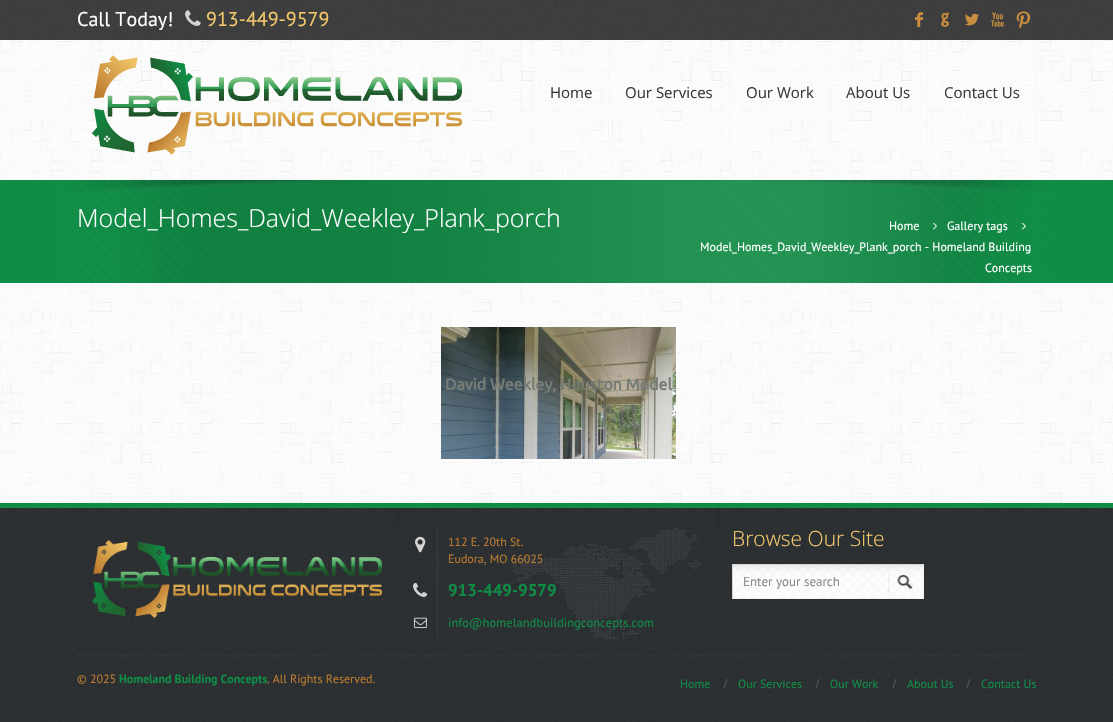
void draw(SkCanvas* canvas) {
	SkPaint fill;
	fill.setAntiAlias(true);
	auto makeFont = [&](const char* family, int weight, float size, bool italic = false) {
		SkFontStyle style(weight, SkFontStyle::kNormal_Width,
			italic ? SkFontStyle::kItalic_Slant : SkFontStyle::kUpright_Slant);
		SkFont result(fontMgr->matchFamilyStyle(family, style), size);
		result.setSubpixel(true);
		return result;
	};
	auto text = [&](const char* s, float x, float y, const SkFont& font) {
		canvas->drawString(s, x, y, font, fill);
	};
	auto box = [&](float l, float t, float r, float b) {
		canvas->drawRect(SkRect::MakeLTRB(l, t, r, b), fill);
	};
	auto picture = [&](const char* path, float l, float t, float r, float b) {
		auto image = SkImages::DeferredFromEncodedData(SkData::MakeFromFileName(path));
		canvas->drawImageRect(image, SkRect::MakeLTRB(l, t, r, b), SkSamplingOptions());
	};
	canvas->clear(0xFFFFFFFF);
	picture("image0.png", 0, 40, 1113, 503);
	fill.setColor(0xFF3E3E3E);
	box(0, 0, 1113, 40);
	picture("image1.png", 4, 0, 1106, 40);
	picture("image2.png", 185, 10, 201, 26);
	picture("image3.png", 92, 55, 462, 155);
	fill.setColor(0xFFF7F7F7);
	box(1036, 40, 1037, 145);
	box(533, 40, 534, 145);
	box(608, 40, 609, 145);
	box(729, 40, 730, 145);
	box(829, 40, 830, 145);
	box(927, 40, 928, 145);
	fill.setColor(0xFF0F8D46);
	box(0, 180, 1113, 283);
	picture("image4.png", 57, 180, 1056, 283);
	picture("image5.png", 933, 222, 937, 230);
	picture("image6.png", 1022, 222, 1026, 230);
	picture("image7.png", 441, 327, 676, 459);
	fill.setColor(0xFF292C30);
	box(0, 508, 1113, 722);
	picture("image8.png", 0, 508, 1113, 722);
	fill.setColor(0xFF0F8D46);
	box(0, 503, 1113, 508);
	picture("image9.png", 92, 539, 382, 619);
	picture("image10.png", 397, 508, 400, 525);
	picture("image11.png", 502, 528, 702, 639);
	picture("image12.png", 415, 536, 426, 553);
	fill.setColor(0xFF3A3A3A);
	box(437, 528, 438, 639);
	picture("image13.png", 413, 582, 428, 597);
	picture("image14.png", 414, 617, 427, 628);
	picture("image15.png", 717, 508, 720, 527);
	fill.setColor(0xFFFCFCFC);
	box(733, 565, 923, 598);
	picture("image16.png", 733, 565, 923, 598);
	fill.setColor(0xFFD3D3D3);
	box(732, 564, 924, 565);
	fill.setColor(0xFFF2F2F2);
	box(923, 564, 924, 599);
	box(732, 598, 924, 599);
	fill.setColor(0xFFD3D3D3);
	box(732, 564, 733, 599);
	picture("image17.png", 888, 573, 913, 593);
	fill.setColor(0x1F424242);
	box(77, 654, 1037, 657);
	picture("image18.png", 723, 679, 728, 688);
	picture("image19.png", 815, 679, 820, 688);
	picture("image20.png", 892, 679, 897, 688);
	picture("image21.png", 966, 679, 971, 688);
	auto font1 = makeFont("PT Sans", 400, 20);
	fill.setColor(0xFFFFFFFF);
	text("Call Today!", 77, 26, font1);
	fill.setColor(0xFFF3C96B);
	text("913-449-9579", 206, 26, font1);
	auto font2 = makeFont("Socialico", 400, 24);
	fill.setColor(0xFFC98E3F);
	text("F", 914, 28, font2);
	text("G", 940, 28, font2);
	text("L", 962, 28, font2);
	text("X", 990, 28, font2);
	text(":", 1014, 28, font2);
	auto font3 = makeFont("Open Sans", 400, 15);
	fill.setColor(0xFF393939);
	text("Home", 550, 98, font3);
	text("Our Services", 625, 98, font3);
	text("Our Work", 746, 98, font3);
	text("About Us", 846, 98, font3);
	text("Contact Us", 944, 98, font3);
	auto font4 = makeFont("Open Sans", 300, 25);
	fill.setColor(0xFFFFFFFF);
	text("Model_Homes_David_Weekley_Plank_porch", 77, 227, font4);
	auto font5 = makeFont("PT Sans", 400, 12);
	text("Home", 889, 230, font5);
	text("Gallery tags", 947, 230, font5);
	text("Model_Homes_David_Weekley_Plank_porch - Homeland Building", 700, 251, font5);
	text("Concepts", 985, 272, font5);
	auto font6 = makeFont("Ubuntu", 700, 16);
	fill.setColor(0xFF767C75);
	text("David Weekley, Houston Model", 445, 390, font6);
	fill.setColor(0xFFBA7A2F);
	text("112 E. 20th St.", 448, 546, font5);
	text("Eudora, MO 66025", 448, 563, font5);
	auto font7 = makeFont("PT Sans", 700, 17);
	fill.setColor(0xFF0F8D46);
	text("913-449-9579", 448, 596, font7);
	auto font8 = makeFont("PT Sans", 400, 12.6f);
	text("info@homelandbuildingconcepts.com", 448, 627, font8);
	auto font9 = makeFont("Open Sans", 300, 21);
	fill.setColor(0xFFF3C96B);
	text("Browse Our Site", 732, 546, font9);
	auto font10 = makeFont("PT Sans", 400, 13);
	fill.setColor(0xFF8C8C8C);
	text("Enter your search", 743, 586, font10);
	fill.setColor(0xFFBA7A2F);
	text("© 2025", 77, 683, font5);
	auto font11 = makeFont("PT Sans", 700, 12);
	fill.setColor(0xFF0F8D46);
	text("Homeland Building Concepts", 119, 683, font11);
	fill.setColor(0xFFBA7A2F);
	text(". All Rights Reserved.", 267, 683, font5);
	fill.setColor(0xFF0F8D46);
	text("Home", 680, 688, font5);
	text("Our Services", 738, 688, font5);
	text("Our Work", 830, 688, font5);
	text("About Us", 907, 688, font5);
	text("Contact Us", 981, 688, font5);
}
